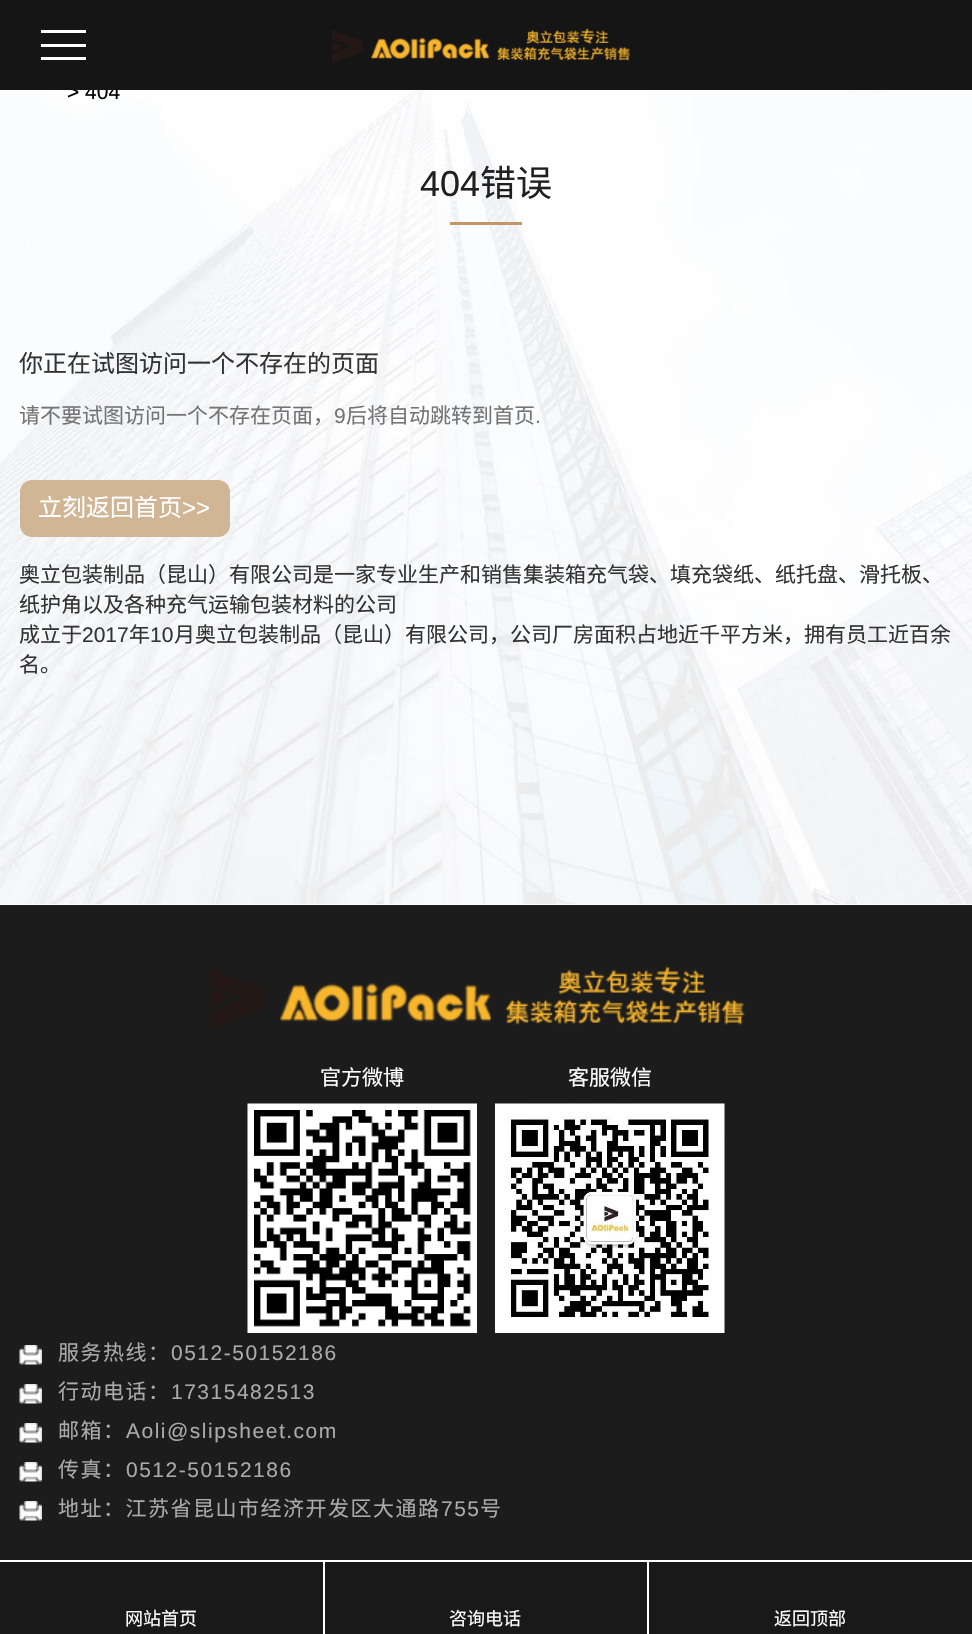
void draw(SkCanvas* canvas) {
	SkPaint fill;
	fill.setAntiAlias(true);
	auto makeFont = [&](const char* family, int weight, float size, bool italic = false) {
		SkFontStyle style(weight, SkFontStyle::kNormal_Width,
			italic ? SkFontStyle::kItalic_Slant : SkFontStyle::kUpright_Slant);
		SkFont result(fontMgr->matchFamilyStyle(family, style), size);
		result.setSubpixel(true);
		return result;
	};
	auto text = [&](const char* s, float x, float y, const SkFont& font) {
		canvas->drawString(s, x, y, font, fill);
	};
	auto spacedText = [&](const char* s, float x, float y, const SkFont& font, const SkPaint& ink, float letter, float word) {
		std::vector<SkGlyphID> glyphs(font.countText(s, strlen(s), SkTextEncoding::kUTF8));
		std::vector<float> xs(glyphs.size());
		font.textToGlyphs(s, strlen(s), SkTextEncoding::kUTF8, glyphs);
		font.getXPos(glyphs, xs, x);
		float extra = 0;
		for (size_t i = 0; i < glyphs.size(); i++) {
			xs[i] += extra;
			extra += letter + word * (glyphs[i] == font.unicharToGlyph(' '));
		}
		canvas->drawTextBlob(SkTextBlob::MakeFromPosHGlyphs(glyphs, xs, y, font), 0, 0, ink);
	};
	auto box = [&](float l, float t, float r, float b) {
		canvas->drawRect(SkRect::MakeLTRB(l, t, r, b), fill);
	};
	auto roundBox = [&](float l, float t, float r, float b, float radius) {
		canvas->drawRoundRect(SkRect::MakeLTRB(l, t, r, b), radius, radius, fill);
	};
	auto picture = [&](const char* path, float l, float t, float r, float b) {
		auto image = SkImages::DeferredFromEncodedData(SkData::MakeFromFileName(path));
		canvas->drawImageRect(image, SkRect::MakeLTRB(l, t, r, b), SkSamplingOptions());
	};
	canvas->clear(0xFFFFFFFF);
	picture("image1.png", 0, 90, 972, 904);
	fill.setColor(0xFFC09767);
	box(450, 222, 522, 225);
	fill.setColor(0xFFD0B695);
	roundBox(20, 480, 230, 537, 12);
	fill.setColor(0xFF1C1C1C);
	box(0, 905, 972, 1560);
	picture("image2.png", 210, 966, 745, 1029);
	picture("image3.png", 247, 1103, 477, 1333);
	picture("image4.png", 495, 1103, 725, 1333);
	picture("image5.png", 19, 1345, 42, 1365);
	picture("image5.png", 19, 1384, 42, 1404);
	picture("image5.png", 19, 1423, 42, 1443);
	picture("image5.png", 19, 1462, 42, 1482);
	picture("image5.png", 19, 1501, 42, 1521);
	fill.setColor(0xFF191919);
	box(0, 1562, 972, 1634);
	fill.setColor(0xFFFFFFFF);
	box(323, 1562, 325, 1634);
	box(647, 1562, 649, 1634);
	auto font1 = makeFont("Liberation Sans", 400, 21);
	fill.setColor(0xFF000000);
	text("> 404", 67, 99, font1);
	fill.setColor(0xFF151515);
	box(0, 0, 972, 90);
	fill.setColor(0xFFFFFFFF);
	box(41, 57, 86, 60);
	box(41, 44, 86, 47);
	box(41, 30, 86, 33);
	picture("image0.png", 332, 28, 631, 64);
	auto font2 = makeFont("Liberation Sans", 400, 36);
	fill.setColor(0xFF202020);
	text("404", 420, 196, font2);
	auto font3 = makeFont("Noto Sans CJK SC", 400, 36);
	text("错误", 480, 196, font3);
	auto font4 = makeFont("Noto Sans CJK SC", 400, 24);
	fill.setColor(0xFF333333);
	text("你正在试图访问一个不存在的页面", 19, 372, font4);
	auto font5 = makeFont("Noto Sans CJK SC", 400, 21);
	fill.setColor(0xFF747474);
	text("请不要试图访问一个不存在页面，", 19, 423, font5);
	text("9", 334, 423, font1);
	text("后将自动跳转到首页", 346, 423, font5);
	text(".", 535, 423, font1);
	fill.setColor(0xFFFFFFFF);
	text("立刻返回首页", 38, 516, font4);
	auto font6 = makeFont("Liberation Sans", 400, 24);
	text(">>", 182, 516, font6);
	fill.setColor(0xFF333333);
	text("奥立包装制品（昆山）有限公司是一家专业生产和销售集装箱充气袋、填充袋纸、纸托盘、滑托板、", 19, 582, font5);
	text("纸护角以及各种充气运输包装材料的公司", 19, 612, font5);
	text("成立于", 19, 642, font5);
	text("2017", 82, 642, font1);
	text("年", 129, 642, font5);
	text("10", 150, 642, font1);
	text("月奥立包装制品（昆山）有限公司，公司厂房面积占地近千平方米，拥有员工近百余", 174, 642, font5);
	text("名。", 19, 672, font5);
	fill.setColor(0xFFFFFFFF);
	text("官方微博", 320, 1085, font5);
	text("客服微信", 568, 1085, font5);
	fill.setColor(0xFFAAAAAA);
	spacedText("服务热线：", 58, 1360, font5, fill, 1.5f, 0);
	spacedText("0512-50152186", 171, 1360, font1, fill, 1.5f, 0);
	spacedText("行动电话：", 58, 1399, font5, fill, 1.5f, 0);
	spacedText("17315482513", 171, 1399, font1, fill, 1.5f, 0);
	spacedText("邮箱：", 58, 1438, font5, fill, 1.5f, 0);
	spacedText("Aoli@slipsheet.com", 126, 1438, font1, fill, 1.5f, 0);
	spacedText("传真：", 58, 1477, font5, fill, 1.5f, 0);
	spacedText("0512-50152186", 126, 1477, font1, fill, 1.5f, 0);
	spacedText("地址：江苏省昆山市经济开发区大通路", 58, 1516, font5, fill, 1.5f, 0);
	spacedText("755", 441, 1516, font1, fill, 1.5f, 0);
	spacedText("号", 480, 1516, font5, fill, 1.5f, 0);
	auto font7 = makeFont("Noto Sans CJK SC", 400, 18);
	fill.setColor(0xFFFFFFFF);
	text("网站首页", 125, 1625, font7);
	text("咨询电话", 449, 1625, font7);
	text("返回顶部", 774, 1625, font7);
}
